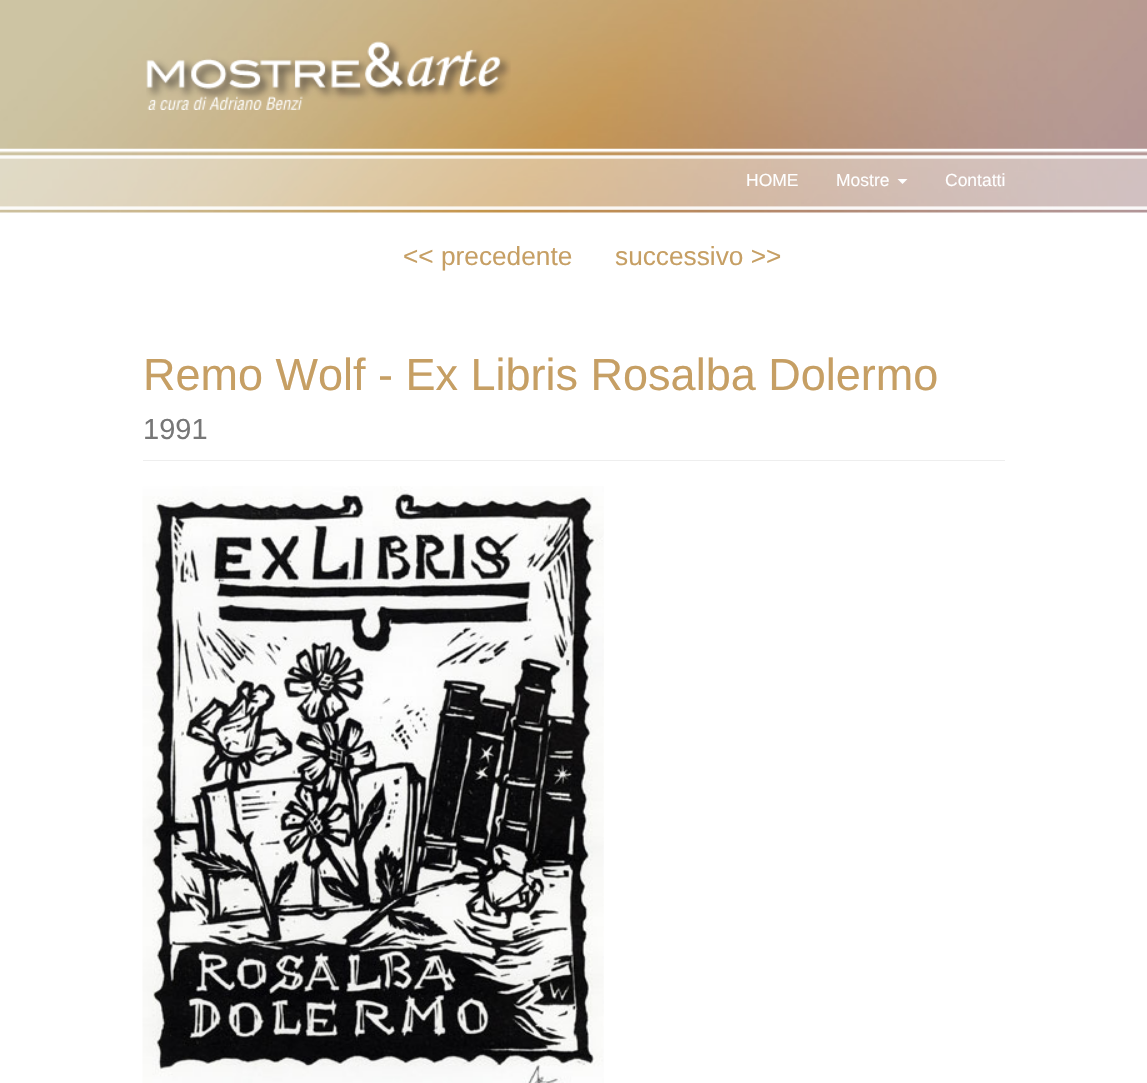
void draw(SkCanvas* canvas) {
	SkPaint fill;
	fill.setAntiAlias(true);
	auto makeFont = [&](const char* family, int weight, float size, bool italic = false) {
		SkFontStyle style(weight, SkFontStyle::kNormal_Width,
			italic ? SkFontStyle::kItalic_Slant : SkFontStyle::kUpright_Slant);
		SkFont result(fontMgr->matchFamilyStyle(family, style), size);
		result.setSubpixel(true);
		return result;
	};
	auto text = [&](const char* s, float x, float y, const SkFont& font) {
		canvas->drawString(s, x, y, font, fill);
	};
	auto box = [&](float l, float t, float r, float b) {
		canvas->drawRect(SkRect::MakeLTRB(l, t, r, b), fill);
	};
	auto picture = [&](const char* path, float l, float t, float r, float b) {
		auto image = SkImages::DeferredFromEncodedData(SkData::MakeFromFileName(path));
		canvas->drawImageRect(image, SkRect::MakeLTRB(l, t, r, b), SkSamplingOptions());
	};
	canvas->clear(0xFFFFFFFF);
	picture("image0.png", 0, 0, 1147, 213);
	picture("image1.png", 146, 41, 511, 110);
	picture("image2.png", 0, 148, 1147, 210);
	fill.setColor(0xFFFFFFFF);
	canvas->drawPath(SkPathBuilder().moveTo(897.5f, 179).lineTo(907.5f, 179).lineTo(902.5f, 184).close().detach(), fill);
	fill.setColor(0xFFEEEEEE);
	box(143, 460, 1005, 461);
	picture("image3.png", 142, 486, 604, 1083);
	auto font1 = makeFont("Liberation Sans", 400, 17.5f);
	fill.setColor(0xFFFFFFFF);
	text("HOME", 746, 186, font1);
	text("Mostre", 836, 186, font1);
	text("Contatti", 945, 186, font1);
	auto font2 = makeFont("Liberation Sans", 400, 26.25f);
	fill.setColor(0xFFC69F64);
	text("<< precedente", 403, 265, font2);
	text("successivo >>", 615, 265, font2);
	auto font3 = makeFont("Liberation Sans", 400, 45);
	text("Remo Wolf - Ex Libris Rosalba Dolermo", 143, 390, font3);
	auto font4 = makeFont("Liberation Sans", 400, 29);
	fill.setColor(0xFF777777);
	text("1991", 143, 439, font4);
}
